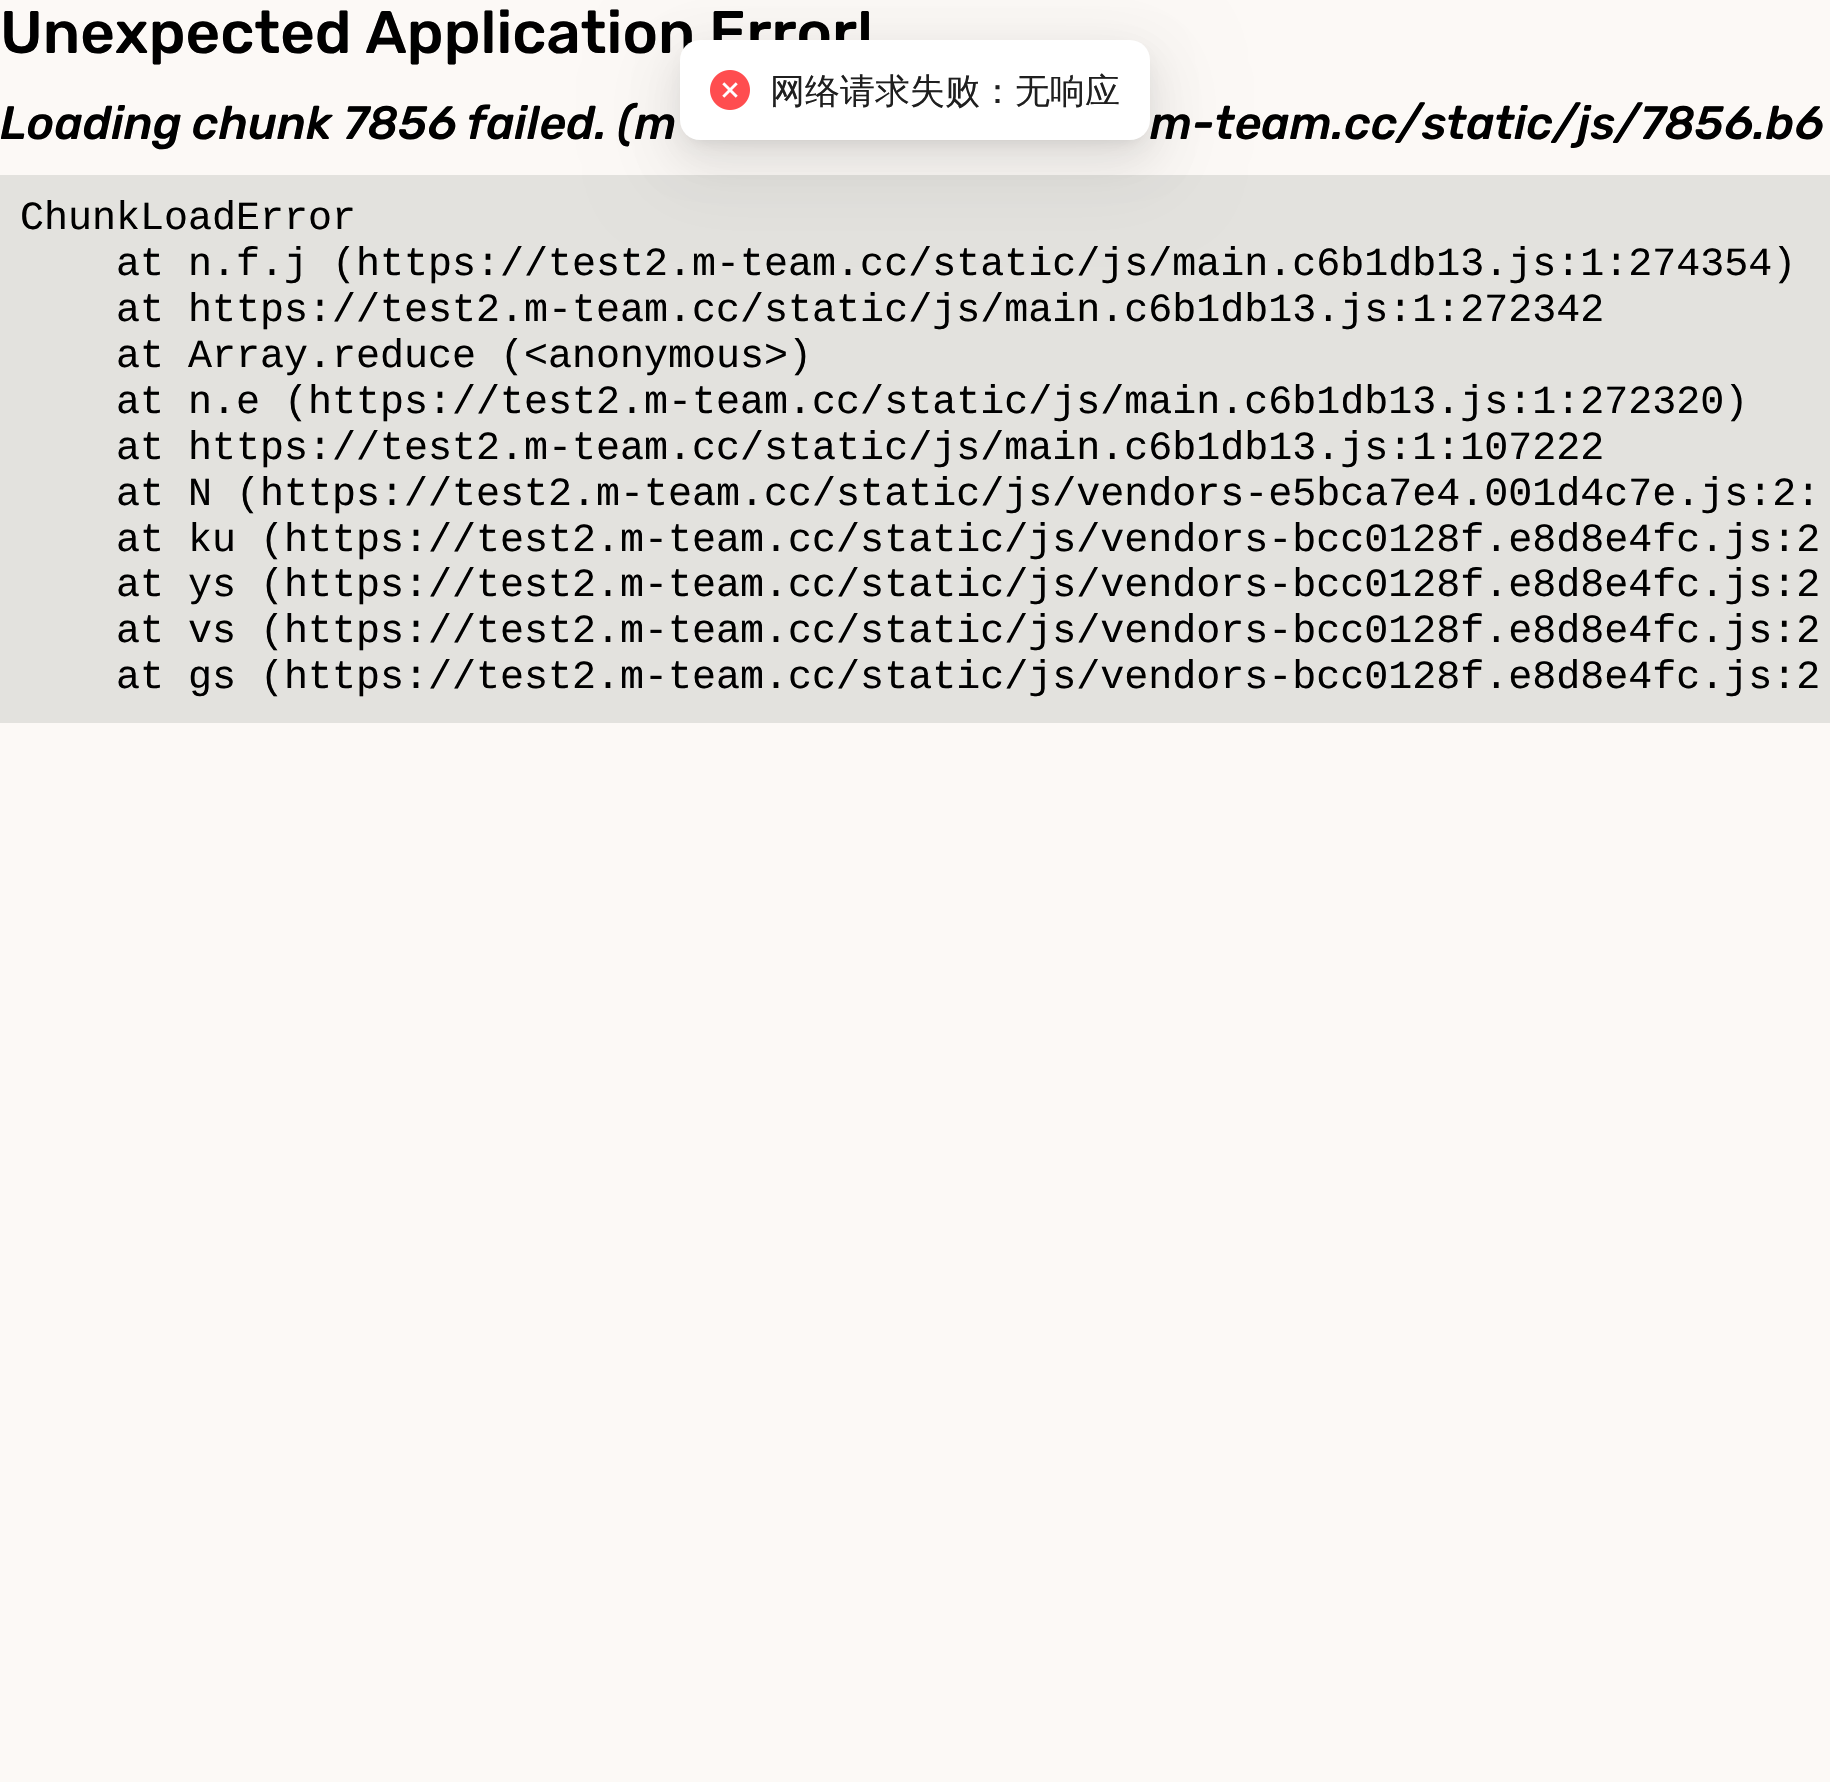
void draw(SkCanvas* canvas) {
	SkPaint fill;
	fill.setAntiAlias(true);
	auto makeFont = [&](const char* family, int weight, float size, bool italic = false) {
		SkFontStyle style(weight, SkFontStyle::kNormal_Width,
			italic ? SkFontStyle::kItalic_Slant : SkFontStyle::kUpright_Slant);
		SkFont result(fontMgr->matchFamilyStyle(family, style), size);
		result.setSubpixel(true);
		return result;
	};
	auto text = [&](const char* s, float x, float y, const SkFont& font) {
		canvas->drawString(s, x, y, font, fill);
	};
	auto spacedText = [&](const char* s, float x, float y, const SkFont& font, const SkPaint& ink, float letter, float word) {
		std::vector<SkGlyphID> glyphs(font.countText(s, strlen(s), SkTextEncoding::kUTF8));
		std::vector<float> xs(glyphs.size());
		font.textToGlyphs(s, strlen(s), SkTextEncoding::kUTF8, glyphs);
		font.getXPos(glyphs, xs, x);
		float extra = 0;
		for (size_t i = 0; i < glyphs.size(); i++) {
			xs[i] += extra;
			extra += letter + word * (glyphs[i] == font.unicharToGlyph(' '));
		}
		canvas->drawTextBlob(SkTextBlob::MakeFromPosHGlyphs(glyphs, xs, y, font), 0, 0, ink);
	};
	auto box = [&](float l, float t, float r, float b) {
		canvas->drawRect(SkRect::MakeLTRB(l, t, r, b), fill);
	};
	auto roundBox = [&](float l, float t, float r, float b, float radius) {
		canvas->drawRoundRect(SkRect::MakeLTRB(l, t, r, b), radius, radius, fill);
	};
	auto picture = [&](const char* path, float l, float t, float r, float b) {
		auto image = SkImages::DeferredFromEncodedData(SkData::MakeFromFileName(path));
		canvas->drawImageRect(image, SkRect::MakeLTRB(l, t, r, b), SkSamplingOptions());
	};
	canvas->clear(0xFFFCF9F6);
	fill.setColor(0xFFE3E2DE);
	box(0, 175, 1830, 723);
	fill.setColor(0x0D000000);
	fill.setMaskFilter(SkMaskFilter::MakeBlur(kNormal_SkBlurStyle, 35));
	canvas->drawRoundRect(SkRect::MakeLTRB(660, 43, 1170, 183), 40, 40, fill);
	fill.setMaskFilter(nullptr);
	fill.setColor(0x1F000000);
	fill.setMaskFilter(SkMaskFilter::MakeBlur(kNormal_SkBlurStyle, 7.5f));
	canvas->drawRoundRect(SkRect::MakeLTRB(690, 58, 1140, 138), 10, 10, fill);
	fill.setMaskFilter(nullptr);
	fill.setColor(0x14000000);
	fill.setMaskFilter(SkMaskFilter::MakeBlur(kNormal_SkBlurStyle, 20));
	canvas->drawRoundRect(SkRect::MakeLTRB(680, 55, 1150, 155), 20, 20, fill);
	fill.setMaskFilter(nullptr);
	auto font1 = makeFont("Rubik", 500, 60);
	fill.setColor(0xFF000000);
	text("Unexpected Application Error!", 0, 53, font1);
	auto font2 = makeFont("Rubik", 500, 46.75f, true);
	spacedText("Loading chunk 7856 failed. (m", 0, 139, font2, fill, 0, -0.5f);
	spacedText("m-team.cc/static/js/7856.b6", 1150, 139, font2, fill, 0, -0.5f);
	auto font3 = makeFont("Liberation Mono", 400, 40);
	text("ChunkLoadError", 20, 229, font3);
	text("at n.f.j (https://test2.m-team.cc/static/js/main.c6b1db13.js:1:274354)", 116, 275, font3);
	text("at https://test2.m-team.cc/static/js/main.c6b1db13.js:1:272342", 116, 321, font3);
	text("at Array.reduce (<anonymous>)", 116, 367, font3);
	text("at n.e (https://test2.m-team.cc/static/js/main.c6b1db13.js:1:272320)", 116, 413, font3);
	text("at https://test2.m-team.cc/static/js/main.c6b1db13.js:1:107222", 116, 459, font3);
	text("at N (https://test2.m-team.cc/static/js/vendors-e5bca7e4.001d4c7e.js:2:", 116, 505, font3);
	text("at ku (https://test2.m-team.cc/static/js/vendors-bcc0128f.e8d8e4fc.js:2", 116, 551, font3);
	text("at ys (https://test2.m-team.cc/static/js/vendors-bcc0128f.e8d8e4fc.js:2", 116, 596, font3);
	text("at vs (https://test2.m-team.cc/static/js/vendors-bcc0128f.e8d8e4fc.js:2", 116, 642, font3);
	text("at gs (https://test2.m-team.cc/static/js/vendors-bcc0128f.e8d8e4fc.js:2", 116, 688, font3);
	fill.setColor(0xFFFFFFFF);
	roundBox(680, 40, 1150, 140, 20);
	picture("image0.png", 710, 70, 750, 110);
	auto font4 = makeFont("WenQuanYi Zen Hei", 500, 35);
	fill.setColor(0xFF1F1F1F);
	text("网络请求失败：无响应", 770, 103, font4);
}
